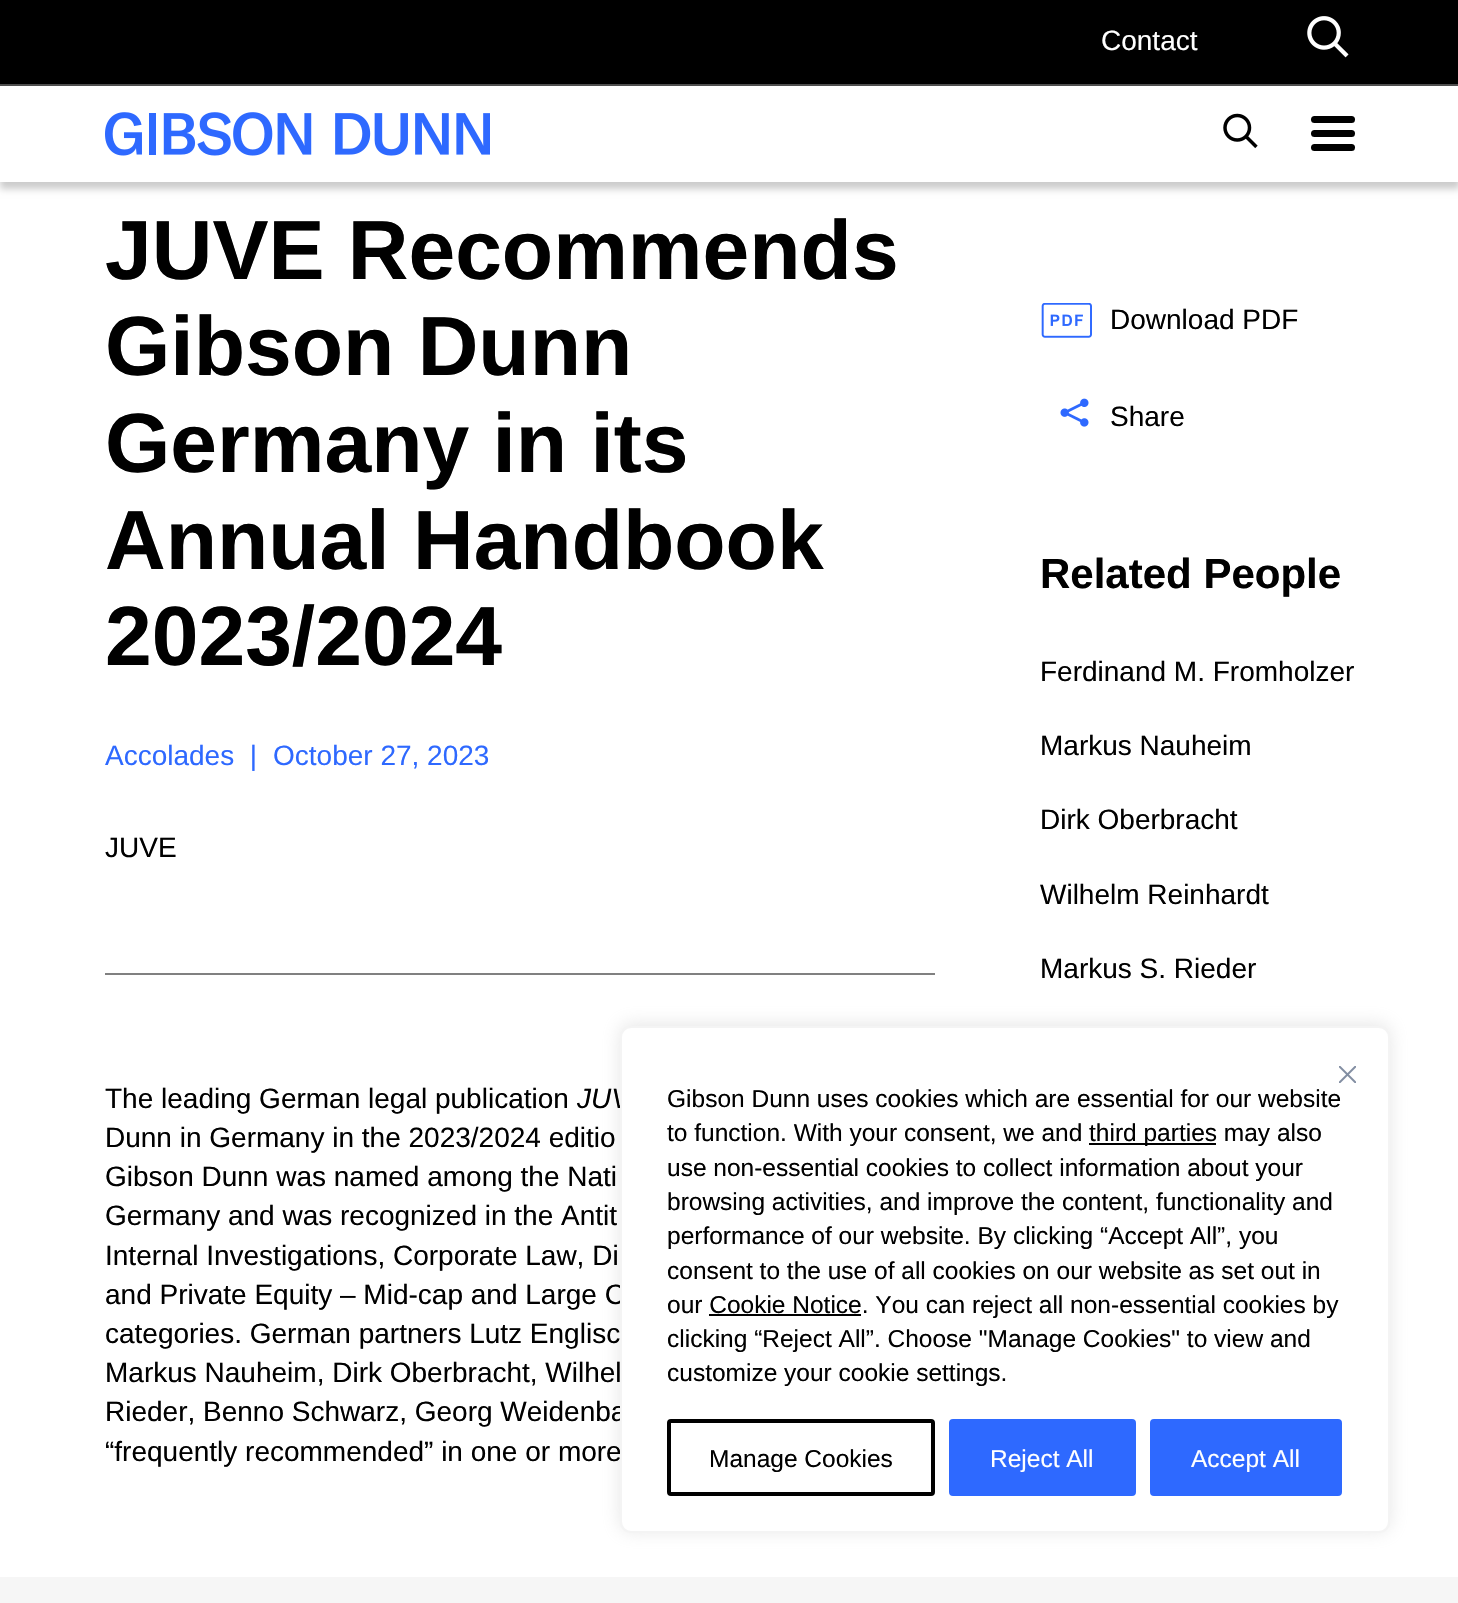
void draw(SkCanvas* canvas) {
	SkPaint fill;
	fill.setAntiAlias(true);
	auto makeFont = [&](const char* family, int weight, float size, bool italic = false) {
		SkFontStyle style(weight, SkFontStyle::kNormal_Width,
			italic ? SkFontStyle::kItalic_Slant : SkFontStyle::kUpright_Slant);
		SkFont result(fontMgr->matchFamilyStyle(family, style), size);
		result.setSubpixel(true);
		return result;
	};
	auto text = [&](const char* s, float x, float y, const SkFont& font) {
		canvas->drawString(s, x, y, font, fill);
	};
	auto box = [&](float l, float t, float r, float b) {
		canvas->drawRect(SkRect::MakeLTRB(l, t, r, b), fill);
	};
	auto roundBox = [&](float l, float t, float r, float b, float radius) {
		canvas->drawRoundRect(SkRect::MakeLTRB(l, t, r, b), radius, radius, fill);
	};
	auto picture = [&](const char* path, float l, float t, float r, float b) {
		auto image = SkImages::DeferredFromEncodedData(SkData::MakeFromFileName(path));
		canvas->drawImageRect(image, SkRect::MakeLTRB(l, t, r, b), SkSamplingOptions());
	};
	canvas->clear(0xFFFFFFFF);
	fill.setColor(0x33000000);
	fill.setMaskFilter(SkMaskFilter::MakeBlur(kNormal_SkBlurStyle, 3.5f));
	canvas->drawRect(SkRect::MakeLTRB(0, 7, 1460, 189), fill);
	fill.setMaskFilter(nullptr);
	fill.setColor(0xFFFFFFFF);
	box(0, 86, 1458, 182);
	fill.setColor(0xFF000000);
	box(0, 0, 1458, 84);
	fill.setColor(0xFF4D4D4D);
	box(0, 84, 1458, 86);
	picture("image0.png", 1307, 16, 1349, 58);
	picture("image1.png", 105, 112, 490, 156);
	picture("image2.png", 1223, 113, 1258, 149);
	fill.setColor(0xFF000000);
	roundBox(1311, 116, 1355, 123, 3.5f);
	roundBox(1311, 130, 1355, 137, 3.5f);
	roundBox(1311, 144, 1355, 151, 3.5f);
	fill.setColor(0xFF808080);
	box(105, 973, 935, 975);
	picture("image3.png", 1041, 303, 1092, 338);
	picture("image4.png", 1060, 398, 1089, 427);
	fill.setColor(0xFFF6F6F6);
	box(0, 1577, 1458, 1603);
	fill.setColor(0x4DACABAB);
	fill.setMaskFilter(SkMaskFilter::MakeBlur(kNormal_SkBlurStyle, 9));
	canvas->drawRoundRect(SkRect::MakeLTRB(620, 1024, 1390, 1531), 11, 11, fill);
	fill.setMaskFilter(nullptr);
	auto font1 = makeFont("Liberation Sans", 400, 28);
	fill.setColor(0xFFFFFFFF);
	text("Contact", 1101, 50, font1);
	auto font2 = makeFont("Liberation Sans", 700, 84);
	fill.setColor(0xFF000000);
	text("JUVE Recommends", 105, 279, font2);
	text("Gibson Dunn", 105, 375, font2);
	text("Germany in its", 105, 472, font2);
	text("Annual Handbook", 105, 569, font2);
	text("2023/2024", 105, 665, font2);
	fill.setColor(0xFF2E69FF);
	text("Accolades  |", 105, 765, font1);
	text("October 27, 2023", 273, 765, font1);
	fill.setColor(0xFF000000);
	text("JUVE", 105, 857, font1);
	text("The leading German legal publication", 105, 1108, font1);
	auto font3 = makeFont("Liberation Sans", 400, 28, true);
	text("JUV", 577, 1108, font3);
	text("Dunn in Germany in the 2023/2024 editio", 105, 1147, font1);
	text("Gibson Dunn was named among the Nati", 105, 1186, font1);
	text("Germany and was recognized in the Antit", 105, 1225, font1);
	text("Internal Investigations, Corporate Law, Di", 105, 1265, font1);
	text("and Private Equity – Mid-cap and Large C", 105, 1304, font1);
	text("categories. German partners Lutz Englisc", 105, 1343, font1);
	text("Markus Nauheim, Dirk Oberbracht, Wilhel", 105, 1382, font1);
	text("Rieder, Benno Schwarz, Georg Weidenba", 105, 1421, font1);
	text("“frequently recommended” in one or more", 105, 1461, font1);
	text("Download PDF", 1110, 329, font1);
	text("Share", 1110, 426, font1);
	auto font4 = makeFont("Liberation Sans", 700, 42);
	text("Related People", 1040, 588, font4);
	text("Ferdinand M. Fromholzer", 1040, 681, font1);
	text("Markus Nauheim", 1040, 755, font1);
	text("Dirk Oberbracht", 1040, 829, font1);
	text("Wilhelm Reinhardt", 1040, 904, font1);
	text("Markus S. Rieder", 1040, 978, font1);
	fill.setColor(0xFFFFFFFF);
	canvas->drawRoundRect(SkRect::MakeLTRB(621, 1027, 1389, 1532), 10, 10, fill);
	fill.setStyle(SkPaint::kStroke_Style);
	fill.setStrokeWidth(2);
	fill.setColor(0xFFF4F4F4);
	canvas->drawRoundRect(SkRect::MakeLTRB(621, 1027, 1389, 1532), 10, 10, fill);
	picture("image5.png", 1339, 1066, 1356, 1083);
	auto font5 = makeFont("Liberation Sans", 400, 24.5f);
	fill.setStyle(SkPaint::kFill_Style);
	fill.setColor(0xFF000000);
	text("Gibson Dunn uses cookies which are essential for our website", 667, 1107, font5);
	text("to function. With your consent, we and", 667, 1141, font5);
	box(1089, 1143, 1216, 1145);
	text("third parties may also", 1089, 1141, font5);
	text("use non-essential cookies to collect information about your", 667, 1176, font5);
	text("browsing activities, and improve the content, functionality and", 667, 1210, font5);
	text("performance of our website. By clicking “Accept All”, you", 667, 1244, font5);
	text("consent to the use of all cookies on our website as set out in", 667, 1279, font5);
	text("our Cookie Notice. You can reject all non-essential cookies by", 667, 1313, font5);
	box(709, 1314, 861, 1316);
	text("clicking “Reject All”. Choose \"Manage Cookies\" to view and", 667, 1347, font5);
	text("customize your cookie settings.", 667, 1381, font5);
	fill.setStyle(SkPaint::kStroke_Style);
	fill.setStrokeWidth(4);
	canvas->drawRoundRect(SkRect::MakeLTRB(669, 1421, 933, 1494), 2, 2, fill);
	fill.setStyle(SkPaint::kFill_Style);
	text("Manage Cookies", 709, 1467, font5);
	fill.setColor(0xFF2E69FF);
	canvas->drawRoundRect(SkRect::MakeLTRB(951, 1421, 1134, 1494), 2, 2, fill);
	fill.setStyle(SkPaint::kStroke_Style);
	canvas->drawRoundRect(SkRect::MakeLTRB(951, 1421, 1134, 1494), 2, 2, fill);
	fill.setStyle(SkPaint::kFill_Style);
	fill.setColor(0xFFFFFFFF);
	text("Reject All", 990, 1467, font5);
	fill.setColor(0xFF2E69FF);
	canvas->drawRoundRect(SkRect::MakeLTRB(1152, 1421, 1340, 1494), 2, 2, fill);
	fill.setStyle(SkPaint::kStroke_Style);
	canvas->drawRoundRect(SkRect::MakeLTRB(1152, 1421, 1340, 1494), 2, 2, fill);
	fill.setStyle(SkPaint::kFill_Style);
	fill.setColor(0xFFFFFFFF);
	text("Accept All", 1191, 1467, font5);
}
